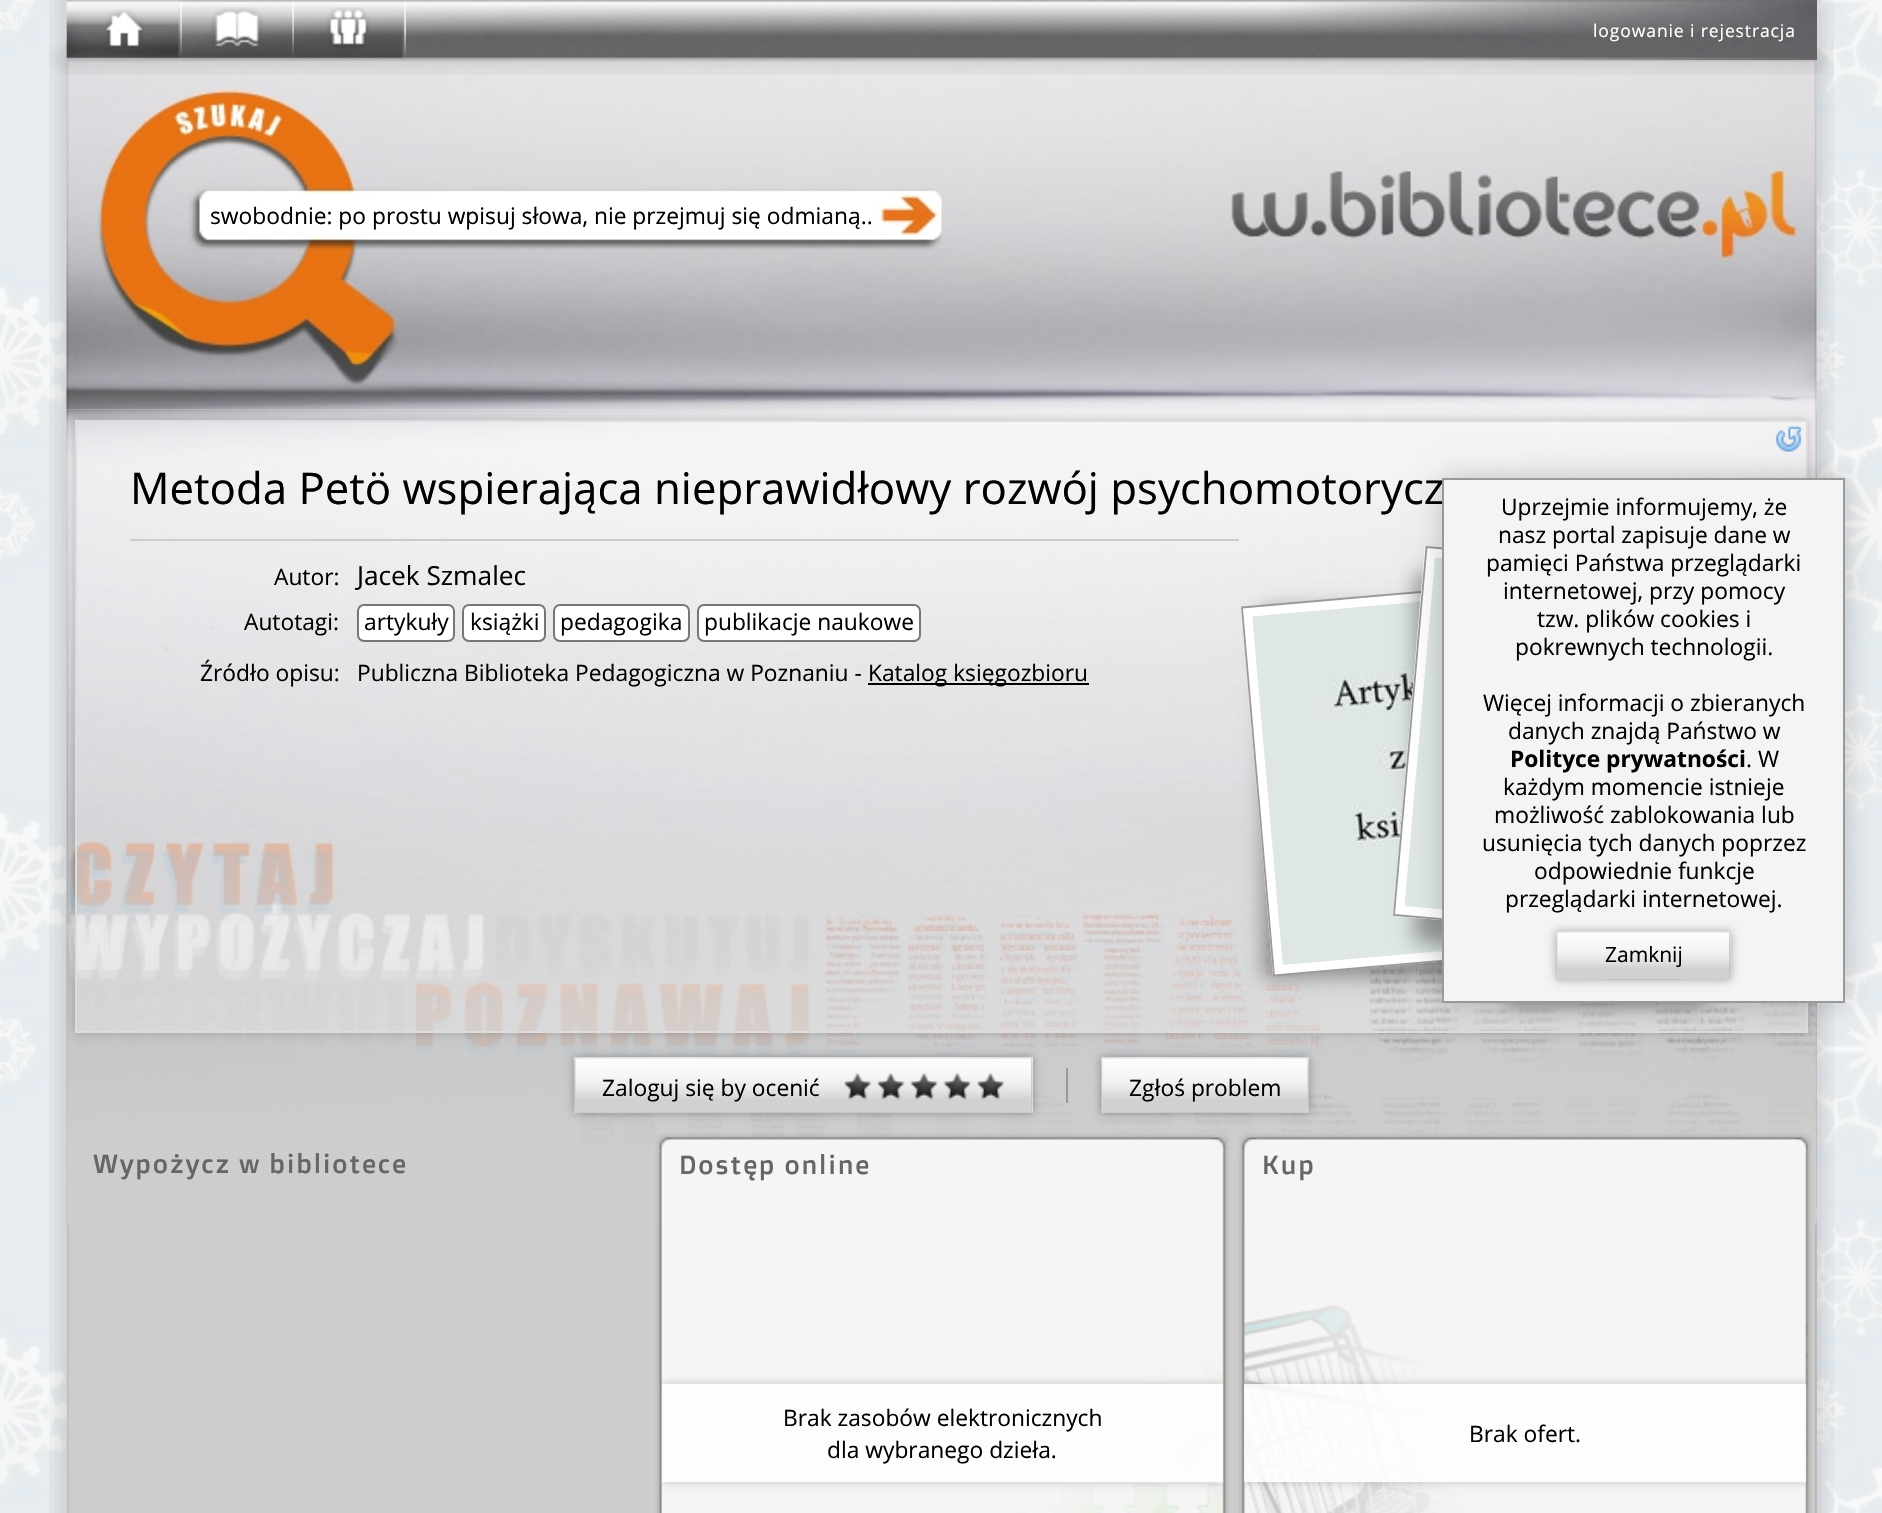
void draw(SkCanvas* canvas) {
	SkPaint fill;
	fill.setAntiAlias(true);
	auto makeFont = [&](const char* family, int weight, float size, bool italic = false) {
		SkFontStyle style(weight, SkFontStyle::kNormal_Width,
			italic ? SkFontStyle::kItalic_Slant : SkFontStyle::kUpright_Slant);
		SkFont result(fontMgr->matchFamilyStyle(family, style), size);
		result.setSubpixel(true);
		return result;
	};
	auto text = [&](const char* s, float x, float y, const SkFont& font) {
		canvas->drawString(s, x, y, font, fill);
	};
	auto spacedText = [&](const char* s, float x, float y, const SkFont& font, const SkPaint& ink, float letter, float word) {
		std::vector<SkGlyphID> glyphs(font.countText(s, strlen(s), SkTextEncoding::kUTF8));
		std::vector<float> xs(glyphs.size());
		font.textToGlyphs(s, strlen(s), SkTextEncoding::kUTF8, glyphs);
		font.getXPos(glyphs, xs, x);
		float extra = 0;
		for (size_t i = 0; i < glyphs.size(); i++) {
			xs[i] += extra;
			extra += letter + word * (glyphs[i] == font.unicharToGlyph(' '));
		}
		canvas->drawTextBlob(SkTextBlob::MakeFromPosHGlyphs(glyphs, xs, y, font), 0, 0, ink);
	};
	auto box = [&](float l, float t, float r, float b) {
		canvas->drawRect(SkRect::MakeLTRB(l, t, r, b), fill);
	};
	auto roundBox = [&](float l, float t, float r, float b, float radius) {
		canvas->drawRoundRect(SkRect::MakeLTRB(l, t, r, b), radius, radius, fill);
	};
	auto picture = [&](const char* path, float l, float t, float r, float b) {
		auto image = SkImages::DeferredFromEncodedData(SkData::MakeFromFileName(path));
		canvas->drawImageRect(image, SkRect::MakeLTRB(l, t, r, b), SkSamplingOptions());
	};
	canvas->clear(0xFFFFFFFF);
	picture("image0.png", 0, 0, 1882, 1513);
	picture("image13.png", 66, 59, 1817, 410);
	fill.setColor(0xFFCCCCCC);
	box(67, 410, 1817, 1513);
	picture("image14.png", 66, 409, 1817, 1225);
	picture("image12.png", 49, 42, 1834, 1513);
	picture("image1.png", 49, 0, 1834, 75);
	picture("image2.png", 67, 0, 1817, 60);
	picture("image3.png", 66, 0, 179, 59);
	picture("image4.png", 180, 1, 182, 57);
	picture("image5.png", 105, 9, 144, 48);
	picture("image6.png", 178, 17, 291, 59);
	picture("image7.png", 292, 1, 294, 58);
	picture("image8.png", 211, 7, 263, 47);
	picture("image9.png", 290, 17, 403, 59);
	picture("image10.png", 404, 1, 406, 58);
	picture("image11.png", 326, 7, 370, 49);
	picture("image29.png", 66, 827, 1817, 1225);
	canvas->save();
	canvas->clipPath(SkPathBuilder(SkPathFillType::kEvenOdd).moveTo(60, 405).lineTo(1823, 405).lineTo(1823, 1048).lineTo(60, 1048).close().moveTo(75, 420).lineTo(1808, 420).lineTo(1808, 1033).lineTo(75, 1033).close().detach(), true);
	fill.setColor(0x33000000);
	fill.setMaskFilter(SkMaskFilter::MakeBlur(kNormal_SkBlurStyle, 4.5f));
	canvas->drawRect(SkRect::MakeLTRB(75, 420, 1808, 1033), fill);
	fill.setMaskFilter(nullptr);
	canvas->restore();
	fill.setColor(0x4DFFFFFF);
	canvas->drawRect(SkRect::MakeLTRB(76, 421, 1807, 1032), fill);
	fill.setStyle(SkPaint::kStroke_Style);
	fill.setStrokeWidth(2);
	fill.setColor(0xFFDDDDDD);
	canvas->drawRect(SkRect::MakeLTRB(76, 421, 1807, 1032), fill);
	picture("image15.png", 1775, 426, 1802, 452);
	fill.setStyle(SkPaint::kFill_Style);
	fill.setColor(0xFFCCCCCC);
	box(130, 539, 1239, 541);
	fill.setColor(0xFFFFFFFF);
	canvas->drawRoundRect(SkRect::MakeLTRB(358, 605, 454, 641), 6, 6, fill);
	fill.setStyle(SkPaint::kStroke_Style);
	fill.setColor(0xFF777777);
	canvas->drawRoundRect(SkRect::MakeLTRB(358, 605, 454, 641), 6, 6, fill);
	fill.setStyle(SkPaint::kFill_Style);
	fill.setColor(0xFFFFFFFF);
	canvas->drawRoundRect(SkRect::MakeLTRB(463, 605, 545, 641), 6, 6, fill);
	fill.setStyle(SkPaint::kStroke_Style);
	fill.setColor(0xFF777777);
	canvas->drawRoundRect(SkRect::MakeLTRB(463, 605, 545, 641), 6, 6, fill);
	fill.setStyle(SkPaint::kFill_Style);
	fill.setColor(0xFFFFFFFF);
	canvas->drawRoundRect(SkRect::MakeLTRB(554, 605, 689, 641), 6, 6, fill);
	fill.setStyle(SkPaint::kStroke_Style);
	fill.setColor(0xFF777777);
	canvas->drawRoundRect(SkRect::MakeLTRB(554, 605, 689, 641), 6, 6, fill);
	fill.setStyle(SkPaint::kFill_Style);
	fill.setColor(0xFFFFFFFF);
	canvas->drawRoundRect(SkRect::MakeLTRB(698, 605, 920, 641), 6, 6, fill);
	fill.setStyle(SkPaint::kStroke_Style);
	fill.setColor(0xFF777777);
	canvas->drawRoundRect(SkRect::MakeLTRB(698, 605, 920, 641), 6, 6, fill);
	fill.setStyle(SkPaint::kFill_Style);
	fill.setColor(0xFF000000);
	box(868, 683, 1089, 685);
	fill.setColor(0x54000000);
	fill.setMaskFilter(SkMaskFilter::MakeBlur(kNormal_SkBlurStyle, 9));
	canvas->drawRect(SkRect::MakeLTRB(1262, 607, 1558, 978), fill);
	fill.setMaskFilter(nullptr);
	fill.setColor(0xFFFFFFFF);
	canvas->drawPath(SkPathBuilder().moveTo(1241, 607).lineTo(1536, 581).lineTo(1568, 951).lineTo(1273, 976).close().detach(), fill);
	fill.setStyle(SkPaint::kStroke_Style);
	fill.setStrokeWidth(1.8f);
	fill.setColor(0xFF999999);
	canvas->drawPath(SkPathBuilder().moveTo(1242, 607.5f).lineTo(1534.5f, 582).lineTo(1567, 950).lineTo(1274, 975.5f).close().detach(), fill);
	picture("image17.png", 1252, 601, 1442, 965);
	fill.setStyle(SkPaint::kFill_Style);
	fill.setColor(0x54000000);
	fill.setMaskFilter(SkMaskFilter::MakeBlur(kNormal_SkBlurStyle, 9));
	canvas->drawRect(SkRect::MakeLTRB(1414, 572, 1710, 943), fill);
	fill.setMaskFilter(nullptr);
	fill.setColor(0xFFFFFFFF);
	canvas->drawPath(SkPathBuilder().moveTo(1425, 546).lineTo(1720, 572).lineTo(1688, 941).lineTo(1393, 916).close().detach(), fill);
	fill.setStyle(SkPaint::kStroke_Style);
	fill.setColor(0xFF999999);
	canvas->drawPath(SkPathBuilder().moveTo(1426.5f, 547).lineTo(1719, 572.5f).lineTo(1687, 940.5f).lineTo(1394, 915).close().detach(), fill);
	picture("image16.png", 1404, 557, 1442, 910);
	fill.setStyle(SkPaint::kFill_Style);
	fill.setColor(0x54000000);
	fill.setMaskFilter(SkMaskFilter::MakeBlur(kNormal_SkBlurStyle, 9));
	canvas->drawRect(SkRect::MakeLTRB(1505, 957, 1706, 1006), fill);
	fill.setMaskFilter(nullptr);
	fill.setColor(0x4D000000);
	fill.setMaskFilter(SkMaskFilter::MakeBlur(kNormal_SkBlurStyle, 4.5f));
	canvas->drawRect(SkRect::MakeLTRB(574, 1057, 1033, 1113), fill);
	fill.setMaskFilter(nullptr);
	fill.setColor(0xFFEFEFEF);
	box(574, 1057, 1033, 1113);
	picture("image18.png", 574, 1057, 1033, 1113);
	picture("image19.png", 844, 1073, 872, 1100);
	picture("image20.png", 877, 1073, 905, 1100);
	picture("image21.png", 910, 1073, 938, 1100);
	picture("image22.png", 943, 1073, 971, 1100);
	picture("image23.png", 977, 1073, 1004, 1100);
	fill.setColor(0xFF999999);
	box(1066, 1068, 1068, 1103);
	fill.setColor(0x4D000000);
	fill.setMaskFilter(SkMaskFilter::MakeBlur(kNormal_SkBlurStyle, 4.5f));
	canvas->drawRect(SkRect::MakeLTRB(1101, 1057, 1309, 1113), fill);
	fill.setMaskFilter(nullptr);
	fill.setColor(0xFFEFEFEF);
	box(1101, 1057, 1309, 1113);
	picture("image24.png", 1100, 1057, 1309, 1113);
	fill.setColor(0xCCFFFFFF);
	roundBox(660, 1138, 1225, 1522, 9);
	picture("image25.png", 660, 1359, 1224, 1513);
	picture("image26.png", 655, 1133, 1229, 1513);
	canvas->save();
	canvas->clipPath(SkPathBuilder().moveTo(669, 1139).lineTo(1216, 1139).cubicTo(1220, 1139, 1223, 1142, 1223, 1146).lineTo(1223, 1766).cubicTo(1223, 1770, 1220, 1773, 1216, 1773).lineTo(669, 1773).cubicTo(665, 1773, 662, 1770, 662, 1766).lineTo(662, 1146).cubicTo(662, 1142, 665, 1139, 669, 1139).close().detach(), true);
	canvas->clipPath(SkPathBuilder(SkPathFillType::kEvenOdd).moveTo(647, 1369).lineTo(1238, 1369).lineTo(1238, 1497).lineTo(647, 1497).close().moveTo(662, 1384).lineTo(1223, 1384).lineTo(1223, 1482).lineTo(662, 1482).close().detach(), true);
	fill.setColor(0x33000000);
	fill.setMaskFilter(SkMaskFilter::MakeBlur(kNormal_SkBlurStyle, 4.5f));
	canvas->drawRect(SkRect::MakeLTRB(662, 1384, 1223, 1482), fill);
	fill.setMaskFilter(nullptr);
	canvas->restore();
	fill.setColor(0xCCFFFFFF);
	box(662, 1384, 1223, 1482);
	roundBox(1243, 1138, 1808, 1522, 9);
	picture("image27.png", 1244, 1305, 1808, 1513);
	picture("image28.png", 1238, 1133, 1812, 1513);
	canvas->save();
	canvas->clipPath(SkPathBuilder().moveTo(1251, 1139).lineTo(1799, 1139).cubicTo(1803, 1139, 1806, 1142, 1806, 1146).lineTo(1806, 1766).cubicTo(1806, 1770, 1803, 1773, 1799, 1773).lineTo(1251, 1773).cubicTo(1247, 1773, 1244, 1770, 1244, 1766).lineTo(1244, 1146).cubicTo(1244, 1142, 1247, 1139, 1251, 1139).close().detach(), true);
	canvas->clipPath(SkPathBuilder(SkPathFillType::kEvenOdd).moveTo(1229, 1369).lineTo(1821, 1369).lineTo(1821, 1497).lineTo(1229, 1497).close().moveTo(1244, 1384).lineTo(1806, 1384).lineTo(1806, 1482).lineTo(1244, 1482).close().detach(), true);
	fill.setColor(0x33000000);
	fill.setMaskFilter(SkMaskFilter::MakeBlur(kNormal_SkBlurStyle, 4.5f));
	canvas->drawRect(SkRect::MakeLTRB(1244, 1384, 1806, 1482), fill);
	fill.setMaskFilter(nullptr);
	canvas->restore();
	fill.setColor(0xCCFFFFFF);
	box(1244, 1384, 1806, 1482);
	fill.setColor(0x33000000);
	fill.setMaskFilter(SkMaskFilter::MakeBlur(kNormal_SkBlurStyle, 14));
	canvas->drawRect(SkRect::MakeLTRB(1442, 478, 1845, 1003), fill);
	fill.setMaskFilter(nullptr);
	auto font1 = makeFont("Open Sans", 400, 17.5f);
	fill.setColor(0xFFFFFFFF);
	spacedText("logowanie i rejestracja", 1593, 37, font1, fill, 0.9f, 0);
	auto font2 = makeFont("Open Sans", 400, 22.75f);
	fill.setColor(0xFF000000);
	text("swobodnie: po prostu wpisuj słowa, nie przejmuj się odmianą..", 210, 224, font2);
	auto font3 = makeFont("Open Sans", 400, 43.75f);
	text("Metoda Petö wspierająca nieprawidłowy rozwój psychomotorycz", 130, 504, font3);
	text("Autor:", 274, 585, font2);
	auto font4 = makeFont("Open Sans", 400, 26.25f);
	text("Jacek Szmalec", 357, 585, font4);
	text("Autotagi:", 244, 630, font2);
	text("artykuły", 364, 630, font2);
	text("książki", 470, 630, font2);
	text("pedagogika", 560, 630, font2);
	text("publikacje naukowe", 704, 630, font2);
	text("Źródło opisu:", 200, 681, font2);
	text("Publiczna Biblioteka Pedagogiczna w Poznaniu -", 357, 681, font2);
	text("Katalog księgozbioru", 868, 681, font2);
	text("Zaloguj się by ocenić", 602, 1096, font2);
	text("Zgłoś problem", 1129, 1096, font2);
	auto font5 = makeFont("Doppio One", 400, 26.25f);
	fill.setColor(0xFF666666);
	spacedText("Wypożycz w bibliotece", 93, 1173, font5, fill, 1.75f, 0);
	spacedText("Dostęp online", 679, 1174, font5, fill, 1.75f, 0);
	fill.setColor(0xFF000000);
	text("Brak zasobów elektronicznych", 783, 1426, font2);
	text("dla wybranego dzieła.", 827, 1458, font2);
	fill.setColor(0xFF666666);
	spacedText("Kup", 1262, 1174, font5, fill, 1.75f, 0);
	fill.setColor(0xFF000000);
	text("Brak ofert.", 1469, 1442, font2);
	fill.setColor(0xFFF4F4F4);
	canvas->drawRect(SkRect::MakeLTRB(1443, 479, 1844, 1002), fill);
	fill.setStyle(SkPaint::kStroke_Style);
	fill.setStrokeWidth(2);
	fill.setColor(0xFF999999);
	canvas->drawRect(SkRect::MakeLTRB(1443, 479, 1844, 1002), fill);
	fill.setStyle(SkPaint::kFill_Style);
	fill.setColor(0xFF000000);
	text("Uprzejmie informujemy, że", 1501, 515, font2);
	text("nasz portal zapisuje dane w", 1498, 543, font2);
	text("pamięci Państwa przeglądarki", 1486, 571, font2);
	text("internetowej, przy pomocy", 1503, 599, font2);
	text("tzw. plików cookies i", 1537, 627, font2);
	text("pokrewnych technologii.", 1515, 655, font2);
	text("Więcej informacji o zbieranych", 1483, 711, font2);
	text("danych znajdą Państwo w", 1508, 739, font2);
	auto font6 = makeFont("Open Sans", 700, 22.75f);
	text("Polityce prywatności", 1510, 767, font6);
	text(". W", 1746, 767, font2);
	text("każdym momencie istnieje", 1503, 795, font2);
	text("możliwość zablokowania lub", 1494, 823, font2);
	text("usunięcia tych danych poprzez", 1482, 851, font2);
	text("odpowiednie funkcje", 1534, 879, font2);
	text("przeglądarki internetowej.", 1505, 907, font2);
	fill.setColor(0x4D000000);
	fill.setMaskFilter(SkMaskFilter::MakeBlur(kNormal_SkBlurStyle, 4.5f));
	canvas->drawRect(SkRect::MakeLTRB(1556, 931, 1731, 980), fill);
	fill.setMaskFilter(nullptr);
	fill.setColor(0xFFEFEFEF);
	box(1556, 931, 1731, 980);
	picture("image30.png", 1556, 931, 1731, 980);
	auto font7 = makeFont("Open Sans", 400, 21);
	fill.setColor(0xFF000000);
	text("Zamknij", 1605, 962, font7);
}
